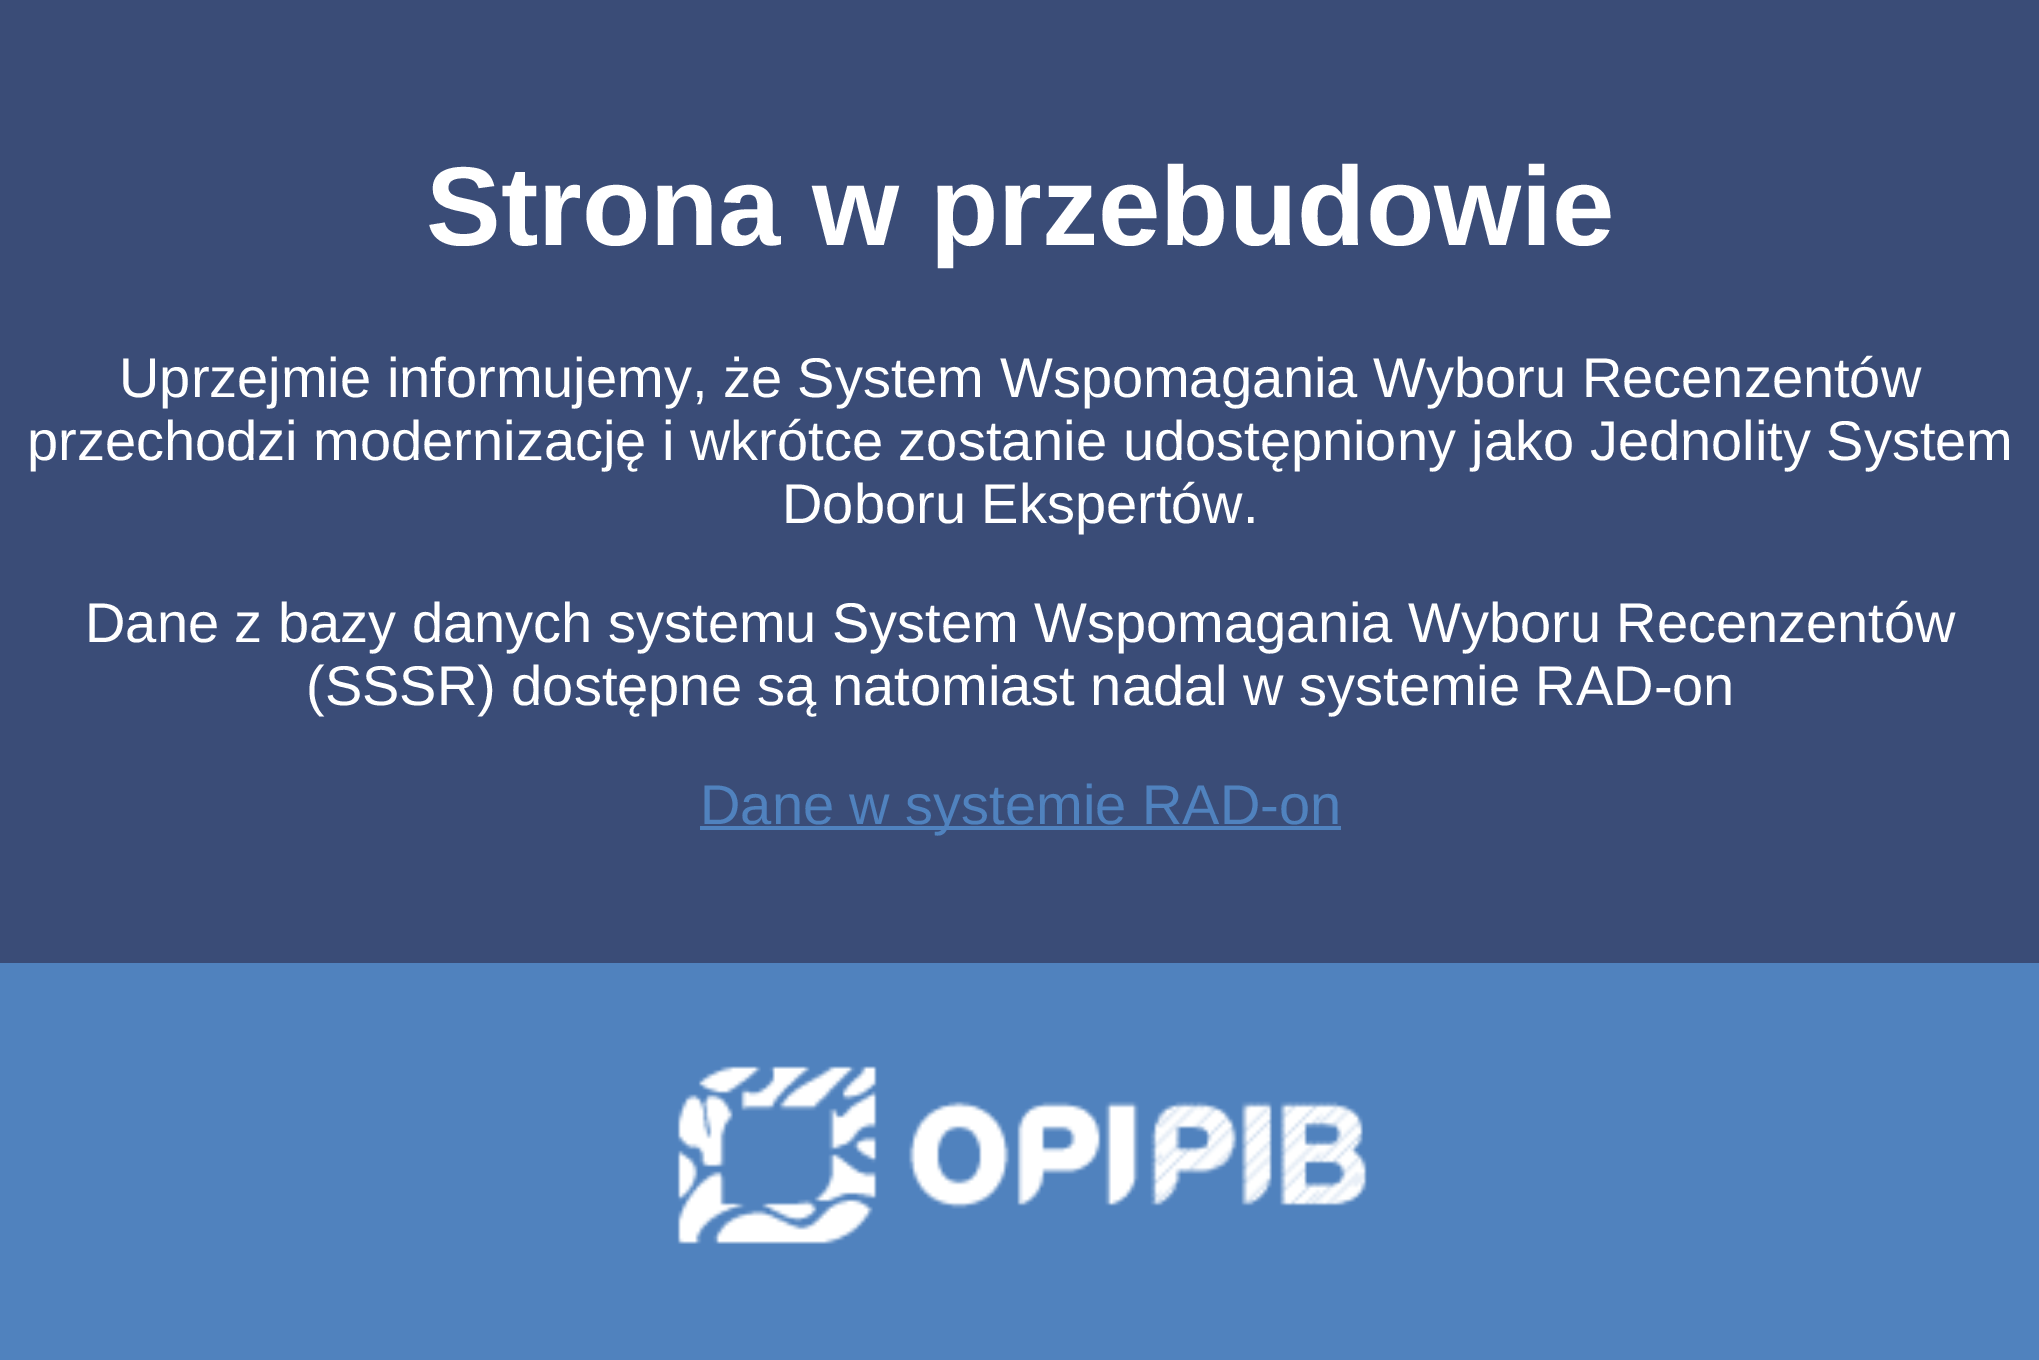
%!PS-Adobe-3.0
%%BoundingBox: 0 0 2039 1360
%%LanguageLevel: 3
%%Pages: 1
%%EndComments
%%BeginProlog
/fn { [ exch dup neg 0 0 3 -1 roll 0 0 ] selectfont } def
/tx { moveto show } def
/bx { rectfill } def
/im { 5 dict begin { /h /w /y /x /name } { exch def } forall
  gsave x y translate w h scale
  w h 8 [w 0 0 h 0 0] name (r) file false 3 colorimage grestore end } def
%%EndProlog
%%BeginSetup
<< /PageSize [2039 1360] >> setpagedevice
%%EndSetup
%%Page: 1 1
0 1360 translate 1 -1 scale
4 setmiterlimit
0.227 0.298 0.467 setrgbcolor
0 0 2039 1360 bx
/LiberationSans-Bold 112 fn
1 setgray
(Strona w przebudowie) 426 245 tx
/LiberationSans-Regular 56 fn
(Uprzejmie informujemy, że System Wspomagania Wyboru Recenzentów) 119 397 tx
(przechodzi modernizację i wkrótce zostanie udostępniony jako Jednolity System) 27 460 tx
(Doboru Ekspertów.) 782 523 tx
(Dane z bazy danych systemu System Wspomagania Wyboru Recenzentów) 85 642 tx
(\(SSSR\) dostępne są natomiast nadal w systemie RAD-on) 306 705 tx
0.314 0.51 0.745 setrgbcolor
700 826 641 4 bx
(Dane w systemie RAD-on) 700 824 tx
0 963 2039 397 bx
(image0.raw) 677 1066 690 178 im
showpage
%%EOF
